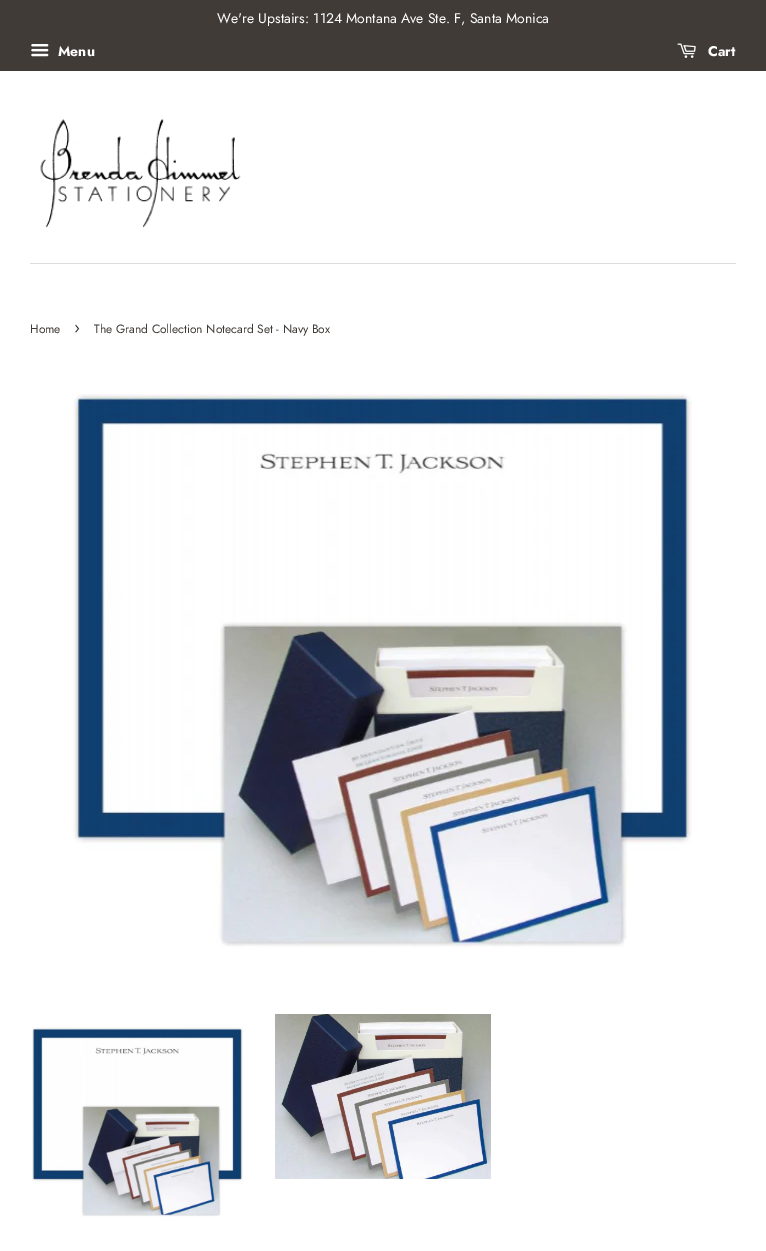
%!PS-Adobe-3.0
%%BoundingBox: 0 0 766 1251
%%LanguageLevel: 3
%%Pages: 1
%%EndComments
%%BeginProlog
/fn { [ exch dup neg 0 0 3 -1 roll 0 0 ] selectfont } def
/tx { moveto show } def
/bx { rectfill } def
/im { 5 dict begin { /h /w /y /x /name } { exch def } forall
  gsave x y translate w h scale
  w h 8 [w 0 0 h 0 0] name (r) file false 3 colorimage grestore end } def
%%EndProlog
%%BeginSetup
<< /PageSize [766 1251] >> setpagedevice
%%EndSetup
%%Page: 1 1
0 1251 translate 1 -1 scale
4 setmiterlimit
1 setgray
0 0 766 1251 bx
0.251 0.231 0.216 setrgbcolor
0 0 766 71 bx
/Jost-Regular 14 fn
1 setgray
(We're Upstairs: 1124 Montana Ave Ste. F, Santa Monica) 217 23 tx
(image0.raw) 31 44 18 13 im
/Jost-Bold 14 fn
(Menu) 58 56 tx
(image1.raw) 677 43 19 15 im
(Cart) 708 56 tx
0.867 setgray
30 263 706 1 bx
(image2.raw) 40 119 201 109 im
/Jost-Regular 12 fn
0.251 0.231 0.216 setrgbcolor
(Home) 30 333 tx
/Jost-Regular 17 fn
(›) 74 333 tx
/Jost-Regular 12 fn
(The Grand Collection Notecard Set - Navy Box) 94 333 tx
(image3.raw) 73 394 619 554 im
(image4.raw) 32 1027 211 190 im
(image5.raw) 275 1014 216 165 im
showpage
%%EOF
